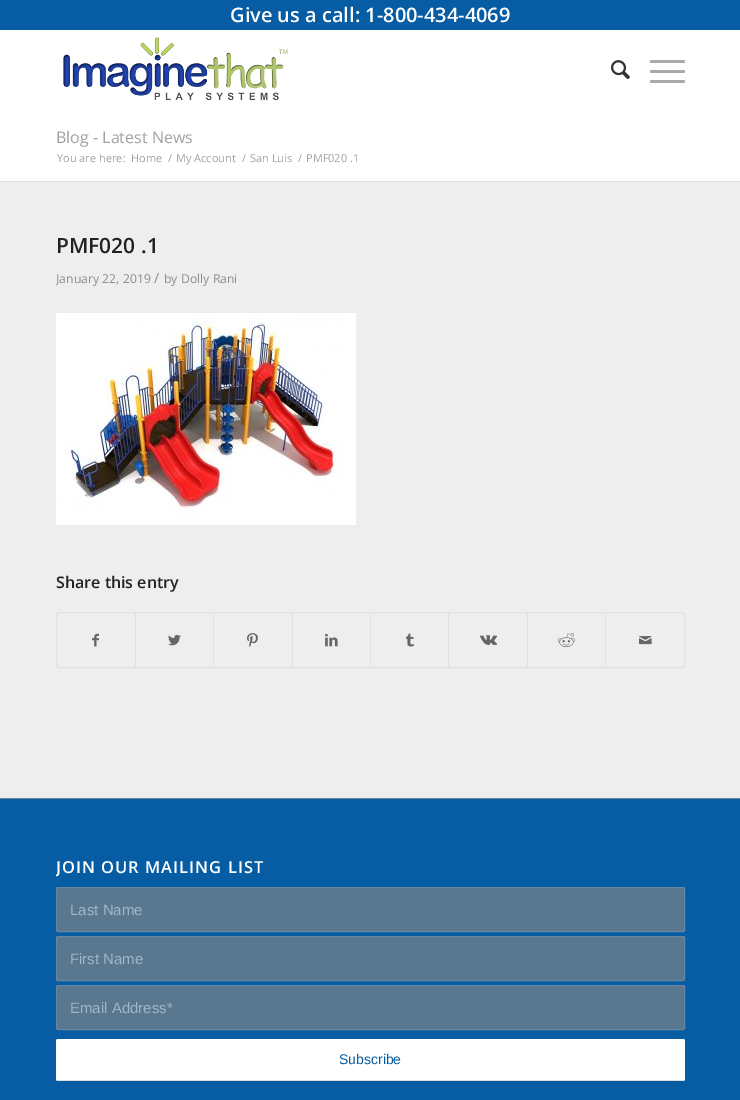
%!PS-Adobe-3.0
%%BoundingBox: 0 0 740 1100
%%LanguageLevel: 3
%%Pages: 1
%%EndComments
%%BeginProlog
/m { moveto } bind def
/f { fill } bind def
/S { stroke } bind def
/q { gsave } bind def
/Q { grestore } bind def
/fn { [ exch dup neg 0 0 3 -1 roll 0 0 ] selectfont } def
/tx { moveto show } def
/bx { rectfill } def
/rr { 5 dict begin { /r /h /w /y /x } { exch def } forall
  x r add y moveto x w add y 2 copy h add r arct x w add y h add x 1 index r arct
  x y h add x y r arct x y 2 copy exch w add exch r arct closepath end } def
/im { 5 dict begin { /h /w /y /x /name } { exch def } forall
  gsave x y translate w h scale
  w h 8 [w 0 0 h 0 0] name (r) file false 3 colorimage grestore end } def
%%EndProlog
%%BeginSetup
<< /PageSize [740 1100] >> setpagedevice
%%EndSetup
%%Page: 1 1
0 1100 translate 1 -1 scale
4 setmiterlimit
1 setgray
0 0 740 1100 bx
0.027 0.365 0.639 setrgbcolor
0 0 740 30 bx
/OpenSans-SemiBold 20 fn
1 setgray
(Give us a call: 1-800-434-4069) 230 22 tx
(image0.raw) 63 37 225 64 im
(image1.raw) 611 60 19 20 im
0.667 setgray
650 70 35 3 1.5 rr f
650 60 35 3 1.5 rr f
650 80 35 3 1.5 rr f
/OpenSans-Regular 16 fn
0.635 setgray
(Blog - Latest News) 56 143 tx
/OpenSans-Regular 11 fn
(You are here:) 57 162 tx
(Home) 131 162 tx
(/) 168 162 tx
(My Account) 176 162 tx
(/) 242 162 tx
(San Luis) 250 162 tx
(/) 298 162 tx
(PMF020 .1) 306 162 tx
0.933 setgray
0 182 740 616 bx
0.882 setgray
0 181 740 1 bx
/OpenSans-SemiBold 21 fn
0.133 setgray
(PMF020 .1) 56 253 tx
q
56 232 629 496 rectclip
/OpenSans-Regular 12.25 fn
0.553 setgray
(January 22, 2019) 56 283 tx
Q
/OpenSans-Regular 14 fn
0.553 setgray
(/) 154 283 tx
/OpenSans-Regular 12.25 fn
(by Dolly Rani) 164 283 tx
(image2.raw) 56 313 300 212 im
/OpenSans-SemiBold 16 fn
0.133 setgray
(Share this entry) 56 588 tx
0.882 setgray
56.5 612.5 628 55 2.5 rr S
(image3.raw) 92 633 7 14 im
135 613 1 54 bx
(image4.raw) 168 634 13 12 im
213 613 1 54 bx
(image5.raw) 247 633 11 14 im
292 613 1 54 bx
(image6.raw) 325 633 13 14 im
370 613 1 54 bx
(image7.raw) 406 633 8 14 im
448 613 1 54 bx
(image8.raw) 480 635 17 10 im
527 613 1 54 bx
(image9.raw) 558 633 17 15 im
605 613 1 54 bx
(image10.raw) 639 636 13 9 im
0.027 0.365 0.639 setrgbcolor
0 799 740 301 bx
0.404 0.525 0.631 setrgbcolor
0 798 740 1 bx
q
56 844 629 239 rectclip
/OpenSans-SemiBold 16.5 fn
1 setgray
56 873 m 1 0 (JOIN OUR MAILING LIST) ashow
Q
0.349 0.467 0.561 setrgbcolor
56.5 887.5 628 44 1.5 rr q f Q
0.404 0.525 0.631 setrgbcolor
S
/LiberationSans-Regular 15 fn
0.616 0.722 0.8 setrgbcolor
(Last Name) 70 915 tx
0.349 0.467 0.561 setrgbcolor
56.5 936.5 628 44 1.5 rr q f Q
0.404 0.525 0.631 setrgbcolor
S
0.616 0.722 0.8 setrgbcolor
(First Name) 70 964 tx
0.349 0.467 0.561 setrgbcolor
56.5 985.5 628 44 1.5 rr q f Q
0.404 0.525 0.631 setrgbcolor
S
0.616 0.722 0.8 setrgbcolor
(Email Address*) 70 1013 tx
1 setgray
56 1039 629 42 2 rr f
0.867 setgray
57 1080 627 1 bx
/LiberationSans-Regular 14 fn
0.027 0.365 0.639 setrgbcolor
(Subscribe) 339 1064 tx
showpage
%%EOF
